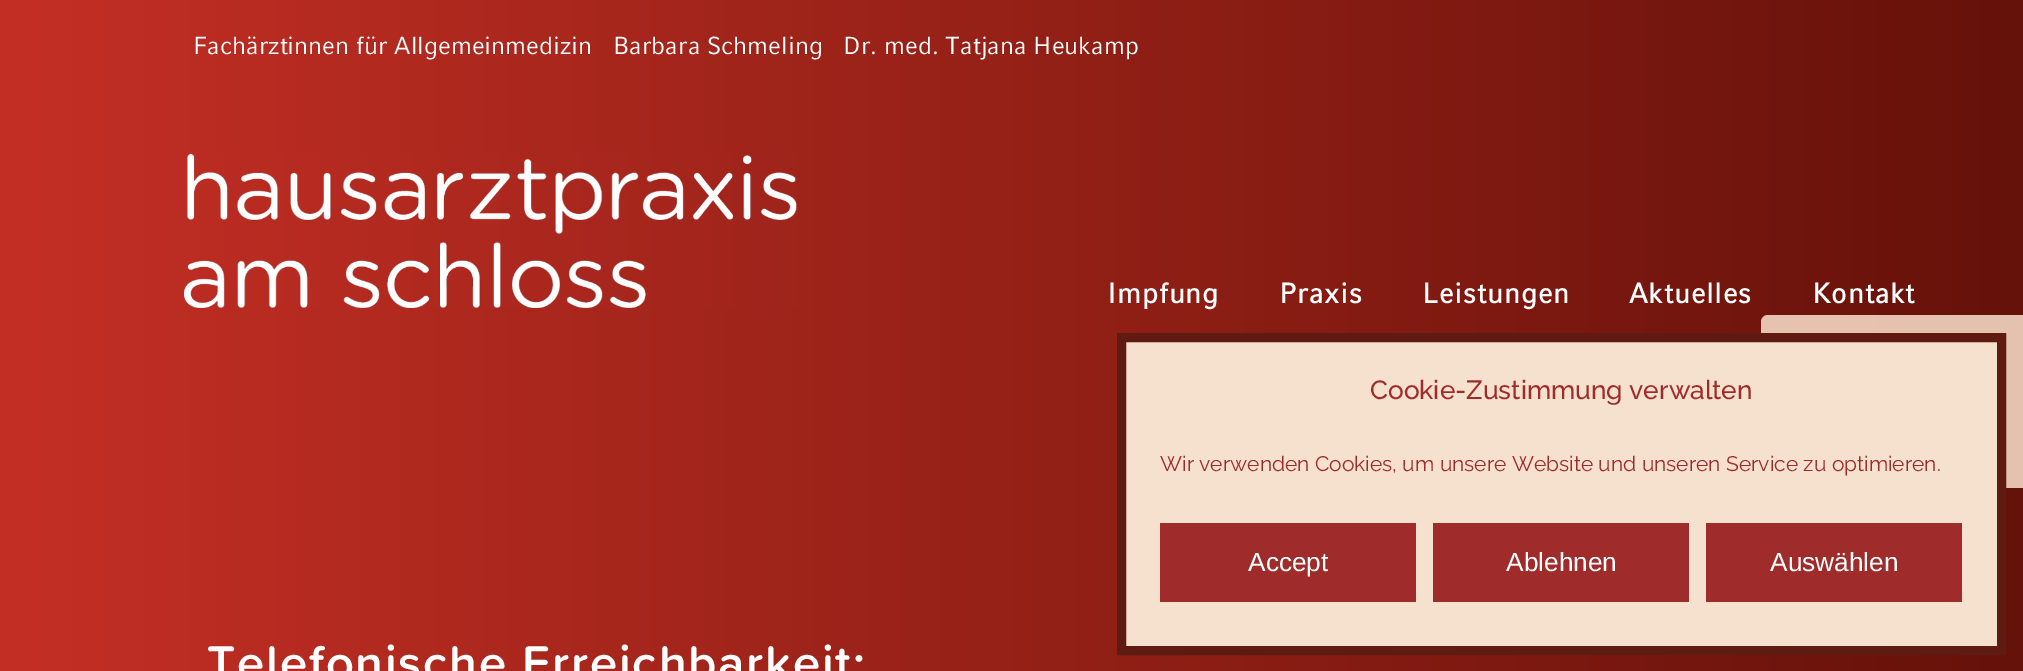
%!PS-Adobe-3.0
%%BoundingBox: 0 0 2023 671
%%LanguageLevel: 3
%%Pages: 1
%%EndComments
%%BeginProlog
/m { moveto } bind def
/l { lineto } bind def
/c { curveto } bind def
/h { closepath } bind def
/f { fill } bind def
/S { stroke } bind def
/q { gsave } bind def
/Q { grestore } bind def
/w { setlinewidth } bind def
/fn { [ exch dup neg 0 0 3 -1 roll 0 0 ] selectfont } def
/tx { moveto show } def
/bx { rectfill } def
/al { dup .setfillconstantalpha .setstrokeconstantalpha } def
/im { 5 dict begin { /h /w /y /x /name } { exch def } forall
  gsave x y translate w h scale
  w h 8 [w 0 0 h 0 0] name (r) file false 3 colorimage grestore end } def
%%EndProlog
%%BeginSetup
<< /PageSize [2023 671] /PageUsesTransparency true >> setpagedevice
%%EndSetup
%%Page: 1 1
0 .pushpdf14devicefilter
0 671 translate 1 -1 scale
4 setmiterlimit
1 setgray
0 0 2023 671 bx
q 0 0 m 2023 0 l 2023 671 l 0 671 l h clip newpath
<< /ShadingType 2 /ColorSpace /DeviceRGB /Coords [-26 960 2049 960] /Extend [true true] /Function << /FunctionType 2 /Domain [0 1] /C0 [0.773 0.184 0.145] /C1 [0.392 0.071 0.039] /N 1 >> >> shfill Q
/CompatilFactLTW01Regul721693-Regular 24.5 fn
(Fachärztinnen für Allgemeinmedizin   Barbara Schmeling   Dr. med. Tatjana Heukamp) 193 54 tx
0.85 al
0.984 0.878 0.8 setrgbcolor
1768 315 m 2023 315 l 2023 488 l 1768 488 l 1764 488 1761 485 1761 481 c 1761 322 l 1761 318 1764 315 1768 315 c h f
1 al
(image0.raw) 184 153 613 155 im
/CompatilFactLTW01Regul721693-Bold 28 fn
1 setgray
1107 303 m 0.9 0 (Impfung) ashow
1279 303 m 0.9 0 (Praxis) ashow
1422 303 m 0.9 0 (Leistungen) ashow
1629 303 m 0.9 0 (Aktuelles) ashow
1812 303 m 0.9 0 (Kontakt) ashow
/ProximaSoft-SemiBold 49 fn
207 679 m 1.75 0 (Telefonische Erreichbarkeit:) ashow
0.965 0.882 0.808 setrgbcolor
1121.5 337.5 m 2001.5 337.5 l 2001.5 650.5 l 1121.5 650.5 l h q f Q
0.373 0.102 0.067 setrgbcolor
9 w
S
/Raleway-Medium 26.25 fn
0.624 0.169 0.165 setrgbcolor
(Cookie-Zustimmung verwalten) 1370 399 tx
/Raleway-Regular 21 fn
(Wir verwenden Cookies, um unsere Website und unseren Service zu optimieren.) 1160 471 tx
1160 523 256 79 bx
/LiberationSans-Regular 26.25 fn
1 setgray
(Accept) 1248 571 tx
0.624 0.169 0.165 setrgbcolor
1433 523 256 79 bx
1 setgray
(Ablehnen) 1506 571 tx
0.624 0.169 0.165 setrgbcolor
1706 523 256 79 bx
1 setgray
(Auswählen) 1770 571 tx
.poppdf14devicefilter showpage
%%EOF
